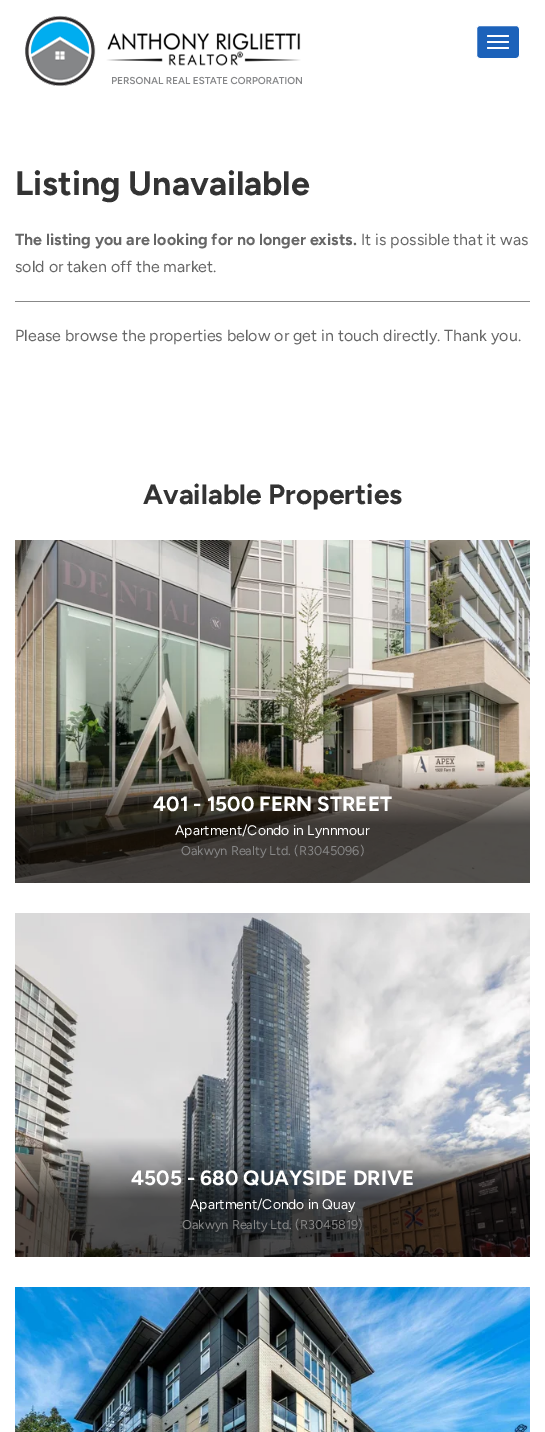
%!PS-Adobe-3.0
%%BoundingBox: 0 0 545 1432
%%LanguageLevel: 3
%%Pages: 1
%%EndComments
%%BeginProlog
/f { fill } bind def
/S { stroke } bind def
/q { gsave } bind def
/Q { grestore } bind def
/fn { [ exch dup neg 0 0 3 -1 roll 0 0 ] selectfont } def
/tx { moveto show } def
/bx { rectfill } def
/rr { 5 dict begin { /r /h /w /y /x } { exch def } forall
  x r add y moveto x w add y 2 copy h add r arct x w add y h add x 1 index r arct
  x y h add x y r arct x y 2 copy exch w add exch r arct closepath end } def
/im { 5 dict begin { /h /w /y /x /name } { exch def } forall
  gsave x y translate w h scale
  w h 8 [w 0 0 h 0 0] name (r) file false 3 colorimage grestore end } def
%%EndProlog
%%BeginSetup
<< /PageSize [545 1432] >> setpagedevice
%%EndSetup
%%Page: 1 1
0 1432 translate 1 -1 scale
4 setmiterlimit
1 setgray
0 0 545 1432 bx
(image0.raw) 25 15 277 71 im
0.11 0.384 0.729 setrgbcolor
476.5 25.5 43 33 3.5 rr q f Q
1 setgray
S
487 35 22 2 1 rr f
487 41 22 2 1 rr f
487 47 22 2 1 rr f
/Figtree-Bold 34 fn
0.2 setgray
(Listing Unavailable) 15 195 tx
/Figtree-Bold 16 fn
0.4 setgray
(The listing you are looking for no longer exists.) 15 245 tx
/Figtree-Regular 16 fn
(It is possible that it was) 361 245 tx
(sold or taken off the market.) 15 272 tx
0.533 setgray
15 301 515 1 bx
0.4 setgray
(Please browse the properties below or get in touch directly. Thank you.) 15 341 tx
/Figtree-Bold 28 fn
0.2 setgray
(Available Properties) 143 504 tx
(image1.raw) 15 540 515 343 im
/Figtree-Bold 20.75 fn
1 setgray
(401 - 1500 FERN STREET) 153 811 tx
/Figtree-Regular 13.9 fn
(Apartment/Condo in Lynnmour) 175 835 tx
/Figtree-Regular 12.75 fn
0.533 setgray
(Oakwyn Realty Ltd. \(R3045096\)) 181 855 tx
(image2.raw) 15 913 515 344 im
/Figtree-Bold 20.75 fn
1 setgray
(4505 - 680 QUAYSIDE DRIVE) 131 1185 tx
/Figtree-Regular 13.9 fn
(Apartment/Condo in Quay) 190 1209 tx
/Figtree-Regular 12.75 fn
0.533 setgray
(Oakwyn Realty Ltd. \(R3045819\)) 182 1229 tx
(image3.raw) 15 1287 515 145 im
showpage
%%EOF
